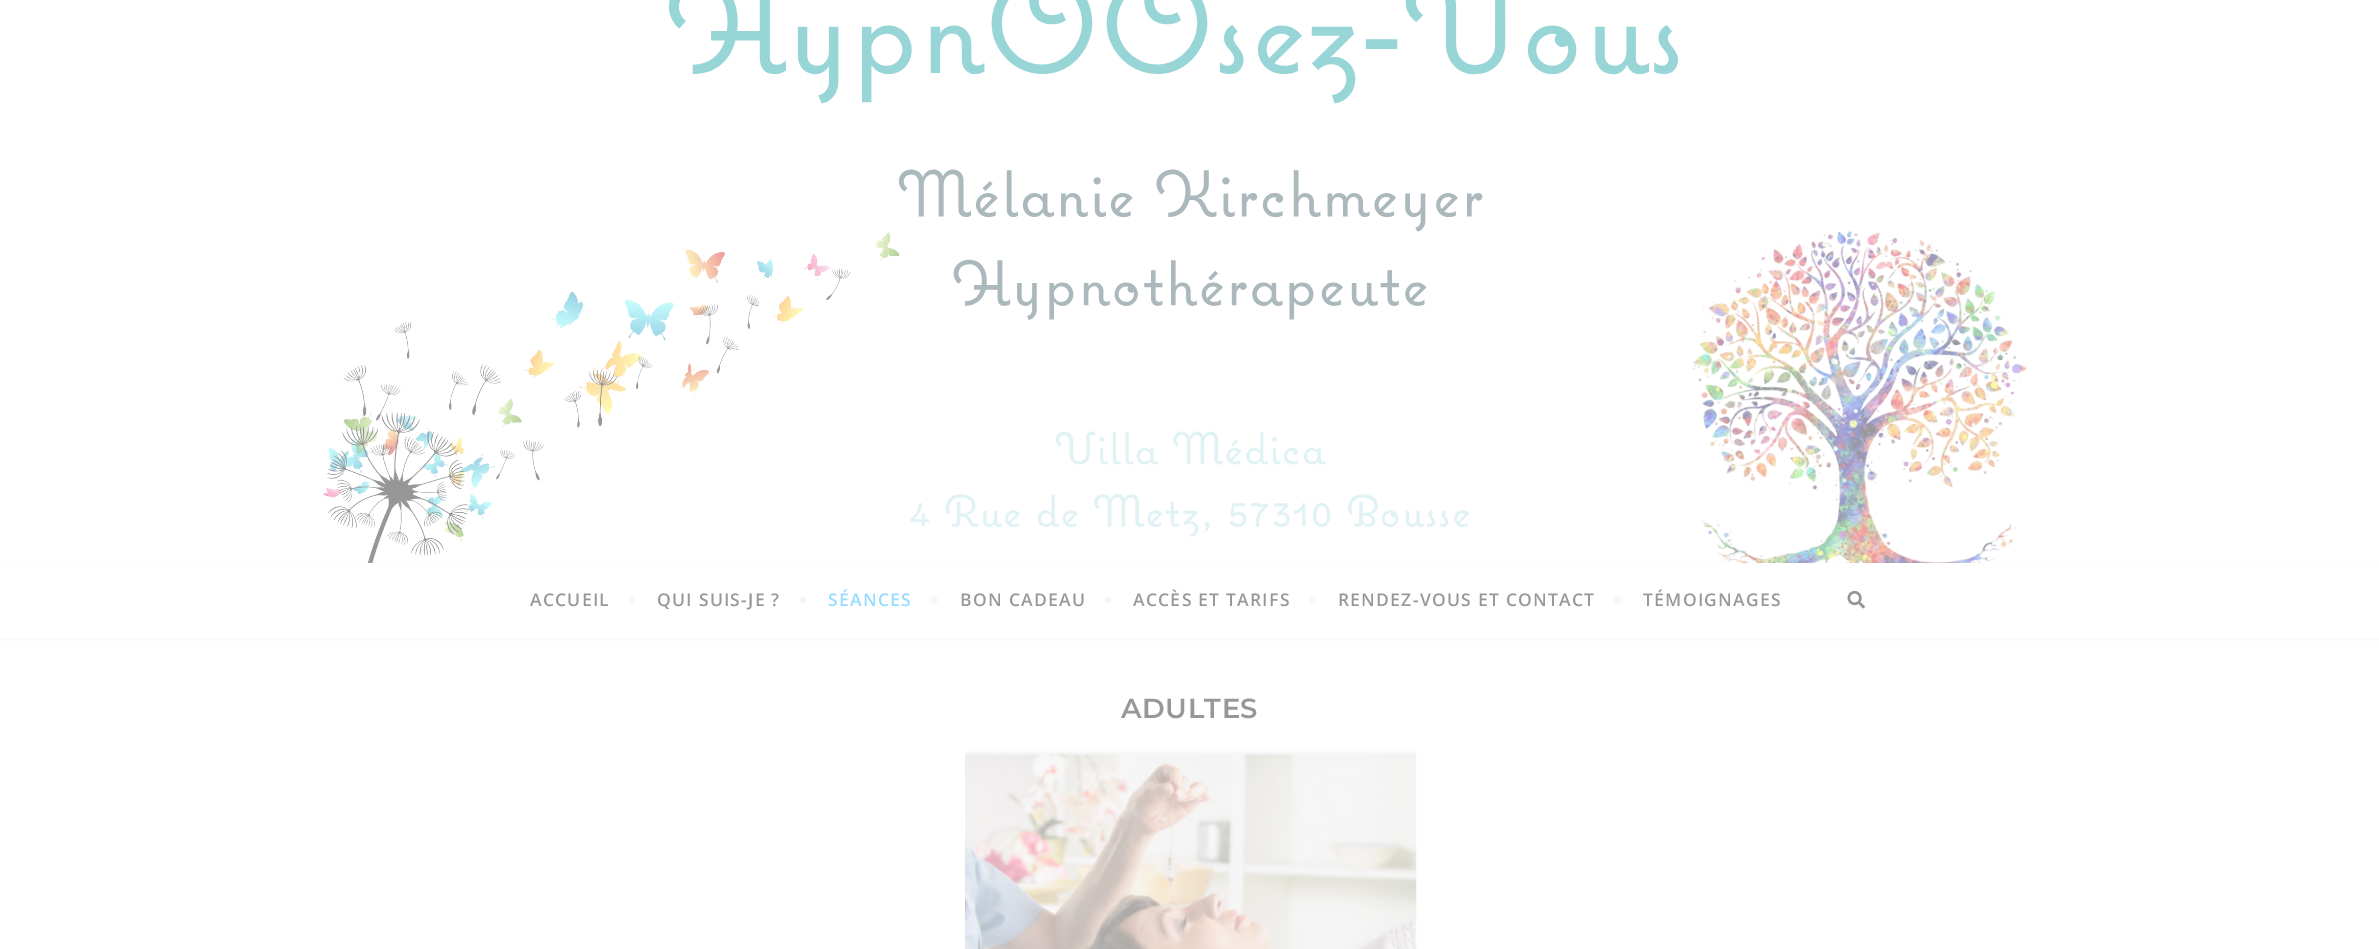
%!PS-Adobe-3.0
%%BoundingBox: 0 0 2379 949
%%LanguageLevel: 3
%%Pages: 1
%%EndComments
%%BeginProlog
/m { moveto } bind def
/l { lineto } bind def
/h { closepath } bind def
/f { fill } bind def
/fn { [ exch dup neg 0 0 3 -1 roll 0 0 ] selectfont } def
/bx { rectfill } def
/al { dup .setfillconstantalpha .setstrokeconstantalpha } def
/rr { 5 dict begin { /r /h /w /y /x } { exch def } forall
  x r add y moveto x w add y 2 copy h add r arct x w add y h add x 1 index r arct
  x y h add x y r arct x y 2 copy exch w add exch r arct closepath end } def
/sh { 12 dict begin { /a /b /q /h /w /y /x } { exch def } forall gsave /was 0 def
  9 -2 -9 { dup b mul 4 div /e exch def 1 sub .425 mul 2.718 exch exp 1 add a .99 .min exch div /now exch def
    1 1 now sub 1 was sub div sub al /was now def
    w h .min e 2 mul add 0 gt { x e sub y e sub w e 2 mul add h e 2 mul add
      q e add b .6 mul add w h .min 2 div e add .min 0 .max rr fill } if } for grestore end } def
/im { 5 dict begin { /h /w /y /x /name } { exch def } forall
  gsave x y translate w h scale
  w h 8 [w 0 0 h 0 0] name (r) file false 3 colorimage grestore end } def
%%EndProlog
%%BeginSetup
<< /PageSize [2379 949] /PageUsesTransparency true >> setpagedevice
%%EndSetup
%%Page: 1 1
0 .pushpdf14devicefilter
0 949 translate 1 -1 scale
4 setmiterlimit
1 setgray
0 0 2379 949 bx
(image0.raw) 323 0 1704 563 im
0.588 setgray
0 564 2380 75 0 3 0.1 sh
1 setgray
0 563 2379 75 bx
/OpenSans-SemiBold 17.5 fn
0.596 setgray
530 606 m 1.25 0 (ACCUEIL) ashow
0.965 setgray
627.5 600 m 632 595.5 l 636 600 l 632 604.5 l h f
0.596 setgray
657 606 m 1.25 0 (QUI SUIS-JE ?) ashow
0.965 setgray
798.5 600 m 803 595.5 l 807.5 600 l 803 604.5 l h f
0.588 0.863 1 setrgbcolor
828 606 m 1.25 0 (SÉANCES) ashow
0.965 setgray
929.5 600 m 934 595.5 l 938.5 600 l 934 604.5 l h f
0.596 setgray
960 606 m 1.25 0 (BON CADEAU) ashow
0.965 setgray
1103 600 m 1107.5 595.5 l 1112 600 l 1107.5 604.5 l h f
0.596 setgray
1133 606 m 1.25 0 (ACCÈS ET TARIFS) ashow
0.965 setgray
1308 600 m 1312.5 595.5 l 1317 600 l 1312.5 604.5 l h f
0.596 setgray
1338 606 m 1.25 0 (RENDEZ-VOUS ET CONTACT) ashow
0.965 setgray
1613 600 m 1617 595.5 l 1621.5 600 l 1617 604.5 l h f
0.596 setgray
1643 606 m 1.25 0 (TÉMOIGNAGES) ashow
(image1.raw) 1847 590 18 19 im
/Montserrat-SemiBold 27.5 fn
1121 718 m 0.5 0 (ADULTES) ashow
(image2.raw) 965 751 452 198 im
.poppdf14devicefilter showpage
%%EOF
